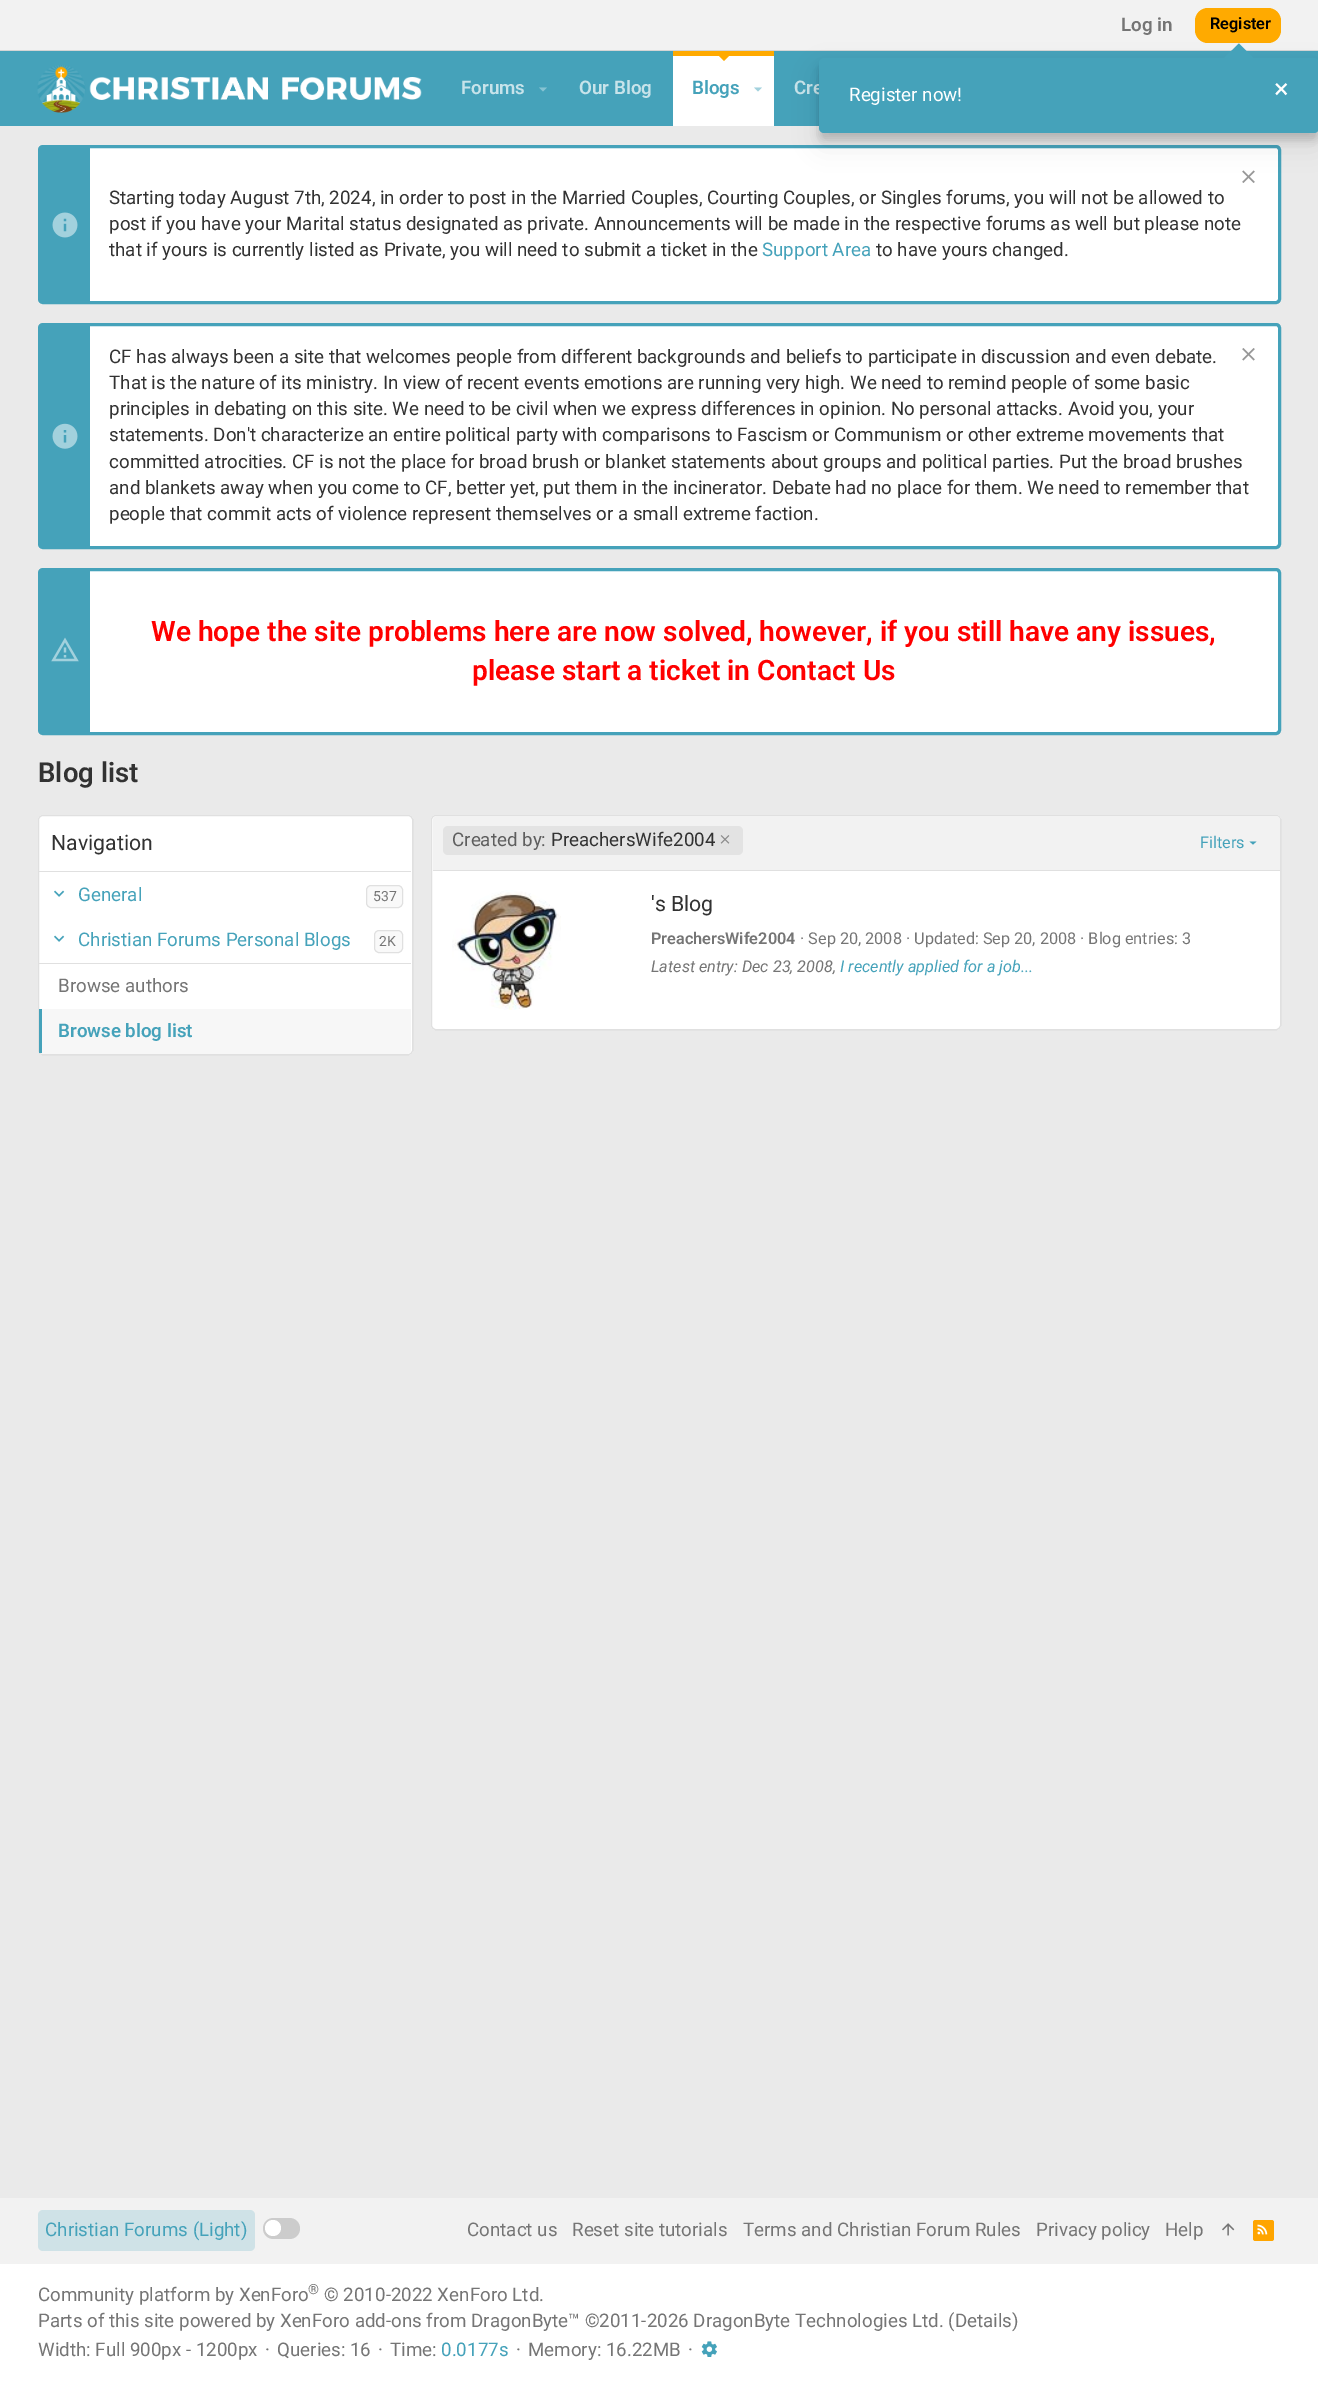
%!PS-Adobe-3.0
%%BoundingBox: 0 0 1318 2385
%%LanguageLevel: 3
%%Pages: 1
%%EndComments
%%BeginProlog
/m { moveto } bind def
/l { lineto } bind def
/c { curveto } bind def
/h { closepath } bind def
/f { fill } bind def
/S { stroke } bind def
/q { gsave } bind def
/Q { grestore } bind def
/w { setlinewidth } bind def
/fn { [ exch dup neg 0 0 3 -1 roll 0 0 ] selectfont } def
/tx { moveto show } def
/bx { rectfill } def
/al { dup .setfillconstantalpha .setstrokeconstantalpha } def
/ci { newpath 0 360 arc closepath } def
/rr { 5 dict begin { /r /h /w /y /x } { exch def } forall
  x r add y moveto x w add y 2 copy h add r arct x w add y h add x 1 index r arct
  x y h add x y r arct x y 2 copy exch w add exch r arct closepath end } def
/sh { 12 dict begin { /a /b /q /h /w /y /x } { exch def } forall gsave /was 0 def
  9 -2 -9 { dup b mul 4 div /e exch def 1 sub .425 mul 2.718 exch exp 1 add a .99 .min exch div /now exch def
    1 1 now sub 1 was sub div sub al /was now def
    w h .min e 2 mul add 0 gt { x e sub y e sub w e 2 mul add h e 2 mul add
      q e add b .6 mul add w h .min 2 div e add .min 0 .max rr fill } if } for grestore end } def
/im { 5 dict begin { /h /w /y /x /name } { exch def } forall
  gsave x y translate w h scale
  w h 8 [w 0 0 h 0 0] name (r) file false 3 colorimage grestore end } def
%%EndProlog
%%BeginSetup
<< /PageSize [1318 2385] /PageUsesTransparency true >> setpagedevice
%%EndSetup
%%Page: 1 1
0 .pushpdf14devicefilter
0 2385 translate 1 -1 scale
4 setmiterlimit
0.918 setgray
0 0 1318 2385 bx
0.949 setgray
0 0 1318 50 bx
0.835 setgray
0 50 1318 1 bx
/Roboto-SemiBold 18.75 fn
0.459 setgray
(Log in) 1121 31 tx
1 0.667 0 setrgbcolor
1195 8 86 35 13 rr f
/Roboto-SemiBold 16.25 fn
0 setgray
(Register) 1210 29 tx
0.271 0.635 0.729 setrgbcolor
0 51 1318 75 bx
(image0.raw) 37 65 385 48 im
/Roboto-SemiBold 18.75 fn
0.78 0.89 0.918 setrgbcolor
(Forums) 461 94 tx
0.525 0.765 0.827 setrgbcolor
539 87.5 m 543 91.5 l 547 87.5 l h f
0.78 0.89 0.918 setrgbcolor
(Our Blog) 579 94 tx
1 setgray
673 56 101 70 bx
1 0.667 0 setrgbcolor
673 51 101 5 bx
719 56 m 729 56 l 724 61 l h f
0.271 0.635 0.729 setrgbcolor
(Blogs) 692 94 tx
0.635 0.82 0.867 setrgbcolor
754 87.5 m 758 91.5 l 762 87.5 l h f
0.78 0.89 0.918 setrgbcolor
(Cre) 794 94 tx
1 setgray
39.5 146.5 1240 156 3.5 rr q f Q
0.271 0.635 0.729 setrgbcolor
3 w
S
41 148 49 153 bx
(image1.raw) 52 212 26 26 im
(image2.raw) 1242 170 13 13 im
/Roboto-Regular 18.75 fn
0.196 setgray
(Starting today August 7th, 2024, in order to post in the Married Couples, Courting Couples, or Singles forums, you will not be allowed to) 109 204 tx
(post if you have your Marital status designated as private. Announcements will be made in the respective forums as well but please note) 109 230 tx
(that if yours is currently listed as Private, you will need to submit a ticket in the) 109 256 tx
0.271 0.635 0.729 setrgbcolor
(Support Area) 762 256 tx
0.196 setgray
(to have yours changed.) 876 256 tx
1 setgray
39.5 324.5 1240 223 3.5 rr q f Q
0.271 0.635 0.729 setrgbcolor
S
41 326 49 220 bx
(image3.raw) 52 423 26 26 im
0.196 setgray
(CF has always been a site that welcomes people from different backgrounds and beliefs to participate in discussion and even debate.) 109 363 tx
(image4.raw) 1242 348 13 13 im
(That is the nature of its ministry. In view of recent events emotions are running very high. We need to remind people of some basic) 109 389 tx
(principles in debating on this site. We need to be civil when we express differences in opinion. No personal attacks. Avoid you, your) 109 415 tx
(statements. Don't characterize an entire political party with comparisons to Fascism or Communism or other extreme movements that) 109 441 tx
(committed atrocities. CF is not the place for broad brush or blanket statements about groups and political parties. Put the broad brushes) 109 468 tx
(and blankets away when you come to CF, better yet, put them in the incinerator. Debate had no place for them. We need to remember that) 109 494 tx
(people that commit acts of violence represent themselves or a small extreme faction.) 109 520 tx
1 setgray
39.5 569.5 1240 164 3.5 rr q f Q
0.271 0.635 0.729 setrgbcolor
S
41 571 49 161 bx
(image5.raw) 51 637 28 25 im
/Roboto-SemiBold 28.1 fn
1 0 0 setrgbcolor
(We hope the site problems here are now solved, however, if you still have any issues,) 151 641 tx
(please start a ticket in Contact Us) 472 680 tx
/Roboto-SemiBold 27.5 fn
0.196 setgray
(Blog list) 38 782 tx
1 setgray
38 815 375 240 5 rr f
0.12 al
0 setgray
1 w
38.5 815.5 374 239 4.5 rr S
1 al
0.878 setgray
39 871 372 1 bx
/Roboto-Regular 21.25 fn
0.196 setgray
(Navigation) 51 850 tx
(image6.raw) 54 890 11 7 im
/Roboto-Regular 18.75 fn
0.271 0.635 0.729 setrgbcolor
(General) 78 901 tx
0.976 setgray
366.5 885.5 36 22 4.5 rr q f Q
0.878 setgray
S
/Roboto-Regular 14 fn
0.459 setgray
(537) 373 901 tx
(image6.raw) 54 935 11 7 im
/Roboto-Regular 18.75 fn
0.271 0.635 0.729 setrgbcolor
(Christian Forums Personal Blogs) 78 946 tx
0.976 setgray
374.5 930.5 28 22 4.5 rr q f Q
0.878 setgray
S
/Roboto-Regular 14 fn
0.459 setgray
(2K) 379 946 tx
0.878 setgray
39 963 372 1 bx
/Roboto-Regular 18.75 fn
0.459 setgray
(Browse authors) 58 992 tx
0.969 setgray
39 1009 m 411 1009 l 411 1050 l 411 1052 409 1054 407 1054 c 43 1054 l 41 1054 39 1052 39 1050 c h f
0.271 0.635 0.729 setrgbcolor
39 1009 3 44 bx
/Roboto-SemiBold 18.75 fn
(Browse blog list) 58 1037 tx
1 setgray
431 815 850 215 5 rr f
0.12 al
0 setgray
431.5 815.5 849 214 4.5 rr S
1 al
0.949 setgray
437 816 m 1276 816 l 1278 816 1280 818 1280 820 c 1280 870 l 433 870 l 433 820 l 433 818 435 816 437 816 c h f
0.89 setgray
443 826 300 29 5 rr f
/Roboto-Regular 18.75 fn
0.369 setgray
(Created by:) 452 846 tx
0.196 setgray
(PreachersWife2004) 551 846 tx
(image7.raw) 720 835 10 9 im
/Roboto-Regular 16.25 fn
0.271 0.635 0.729 setrgbcolor
(Filters) 1200 848 tx
1249.5 841.5 m 1253 844.5 l 1256.5 841.5 l h f
0.878 setgray
433 870 847 1 bx
(image8.raw) 452 890 109 120 im
/Roboto-Regular 21.25 fn
0.196 setgray
('s Blog) 651 911 tx
/Roboto-SemiBold 16.25 fn
0.459 setgray
(PreachersWife2004) 651 944 tx
/Roboto-Regular 16.25 fn
(· Sep 20, 2008 · Updated: Sep 20, 2008 · Blog entries: 3) 800 944 tx
/Roboto-Italic 16.25 fn
(Latest entry: Dec 23, 2008,) 651 972 tx
0.271 0.635 0.729 setrgbcolor
(I recently applied for a job...) 840 972 tx
0.949 setgray
0 2198 1318 66 bx
0.812 0.886 0.906 setrgbcolor
38 2210 217 41 5 rr f
/Roboto-Regular 18.75 fn
0.271 0.635 0.729 setrgbcolor
(Christian Forums \(Light\)) 45 2236 tx
0.8 setgray
263 2218 37 21 10.5 rr f
1 setgray
273 2228 8 ci f
0.459 setgray
(Contact us) 467 2236 tx
(Reset site tutorials) 572 2236 tx
(Terms and Christian Forum Rules) 743 2236 tx
(Privacy policy) 1036 2236 tx
(Help) 1165 2236 tx
(image9.raw) 1222 2223 13 13 im
1 0.647 0 setrgbcolor
1253 2220 21 21 2.5 rr f
(image10.raw) 1257 2224 11 11 im
1 setgray
0 2264 1318 121 bx
0.459 setgray
(Community platform by XenForo) 38 2301 tx
/Roboto-Regular 14 fn
(®) 308 2294 tx
/Roboto-Regular 18.75 fn
(© 2010-2022 XenForo Ltd.) 324 2301 tx
(Parts of this site powered by XenForo add-ons from DragonByte™ ©2011-2026 DragonByte Technologies Ltd. \(Details\)) 38 2327 tx
(Width: Full 900px - 1200px) 38 2356 tx
(·) 265 2356 tx
(Queries: 16) 277 2356 tx
(·) 378 2356 tx
(Time:) 390 2356 tx
0.271 0.635 0.729 setrgbcolor
(0.0177s) 441 2356 tx
0.459 setgray
(·) 516 2356 tx
(Memory: 16.22MB) 528 2356 tx
(·) 688 2356 tx
(image11.raw) 701 2341 16 16 im
0 setgray
819 65 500 75 5 4 0.15 sh
819 70 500 75 5 12.5 0.09 sh
0.271 0.635 0.729 setrgbcolor
819 58 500 75 5 rr f
1239 43.5 m 1253 57.5 l 1239 71.5 l 1224.5 57.5 l h f
1 setgray
(Register now!) 849 101 tx
/Roboto-Regular 27.5 fn
(×) 1274 98 tx
.poppdf14devicefilter showpage
%%EOF
